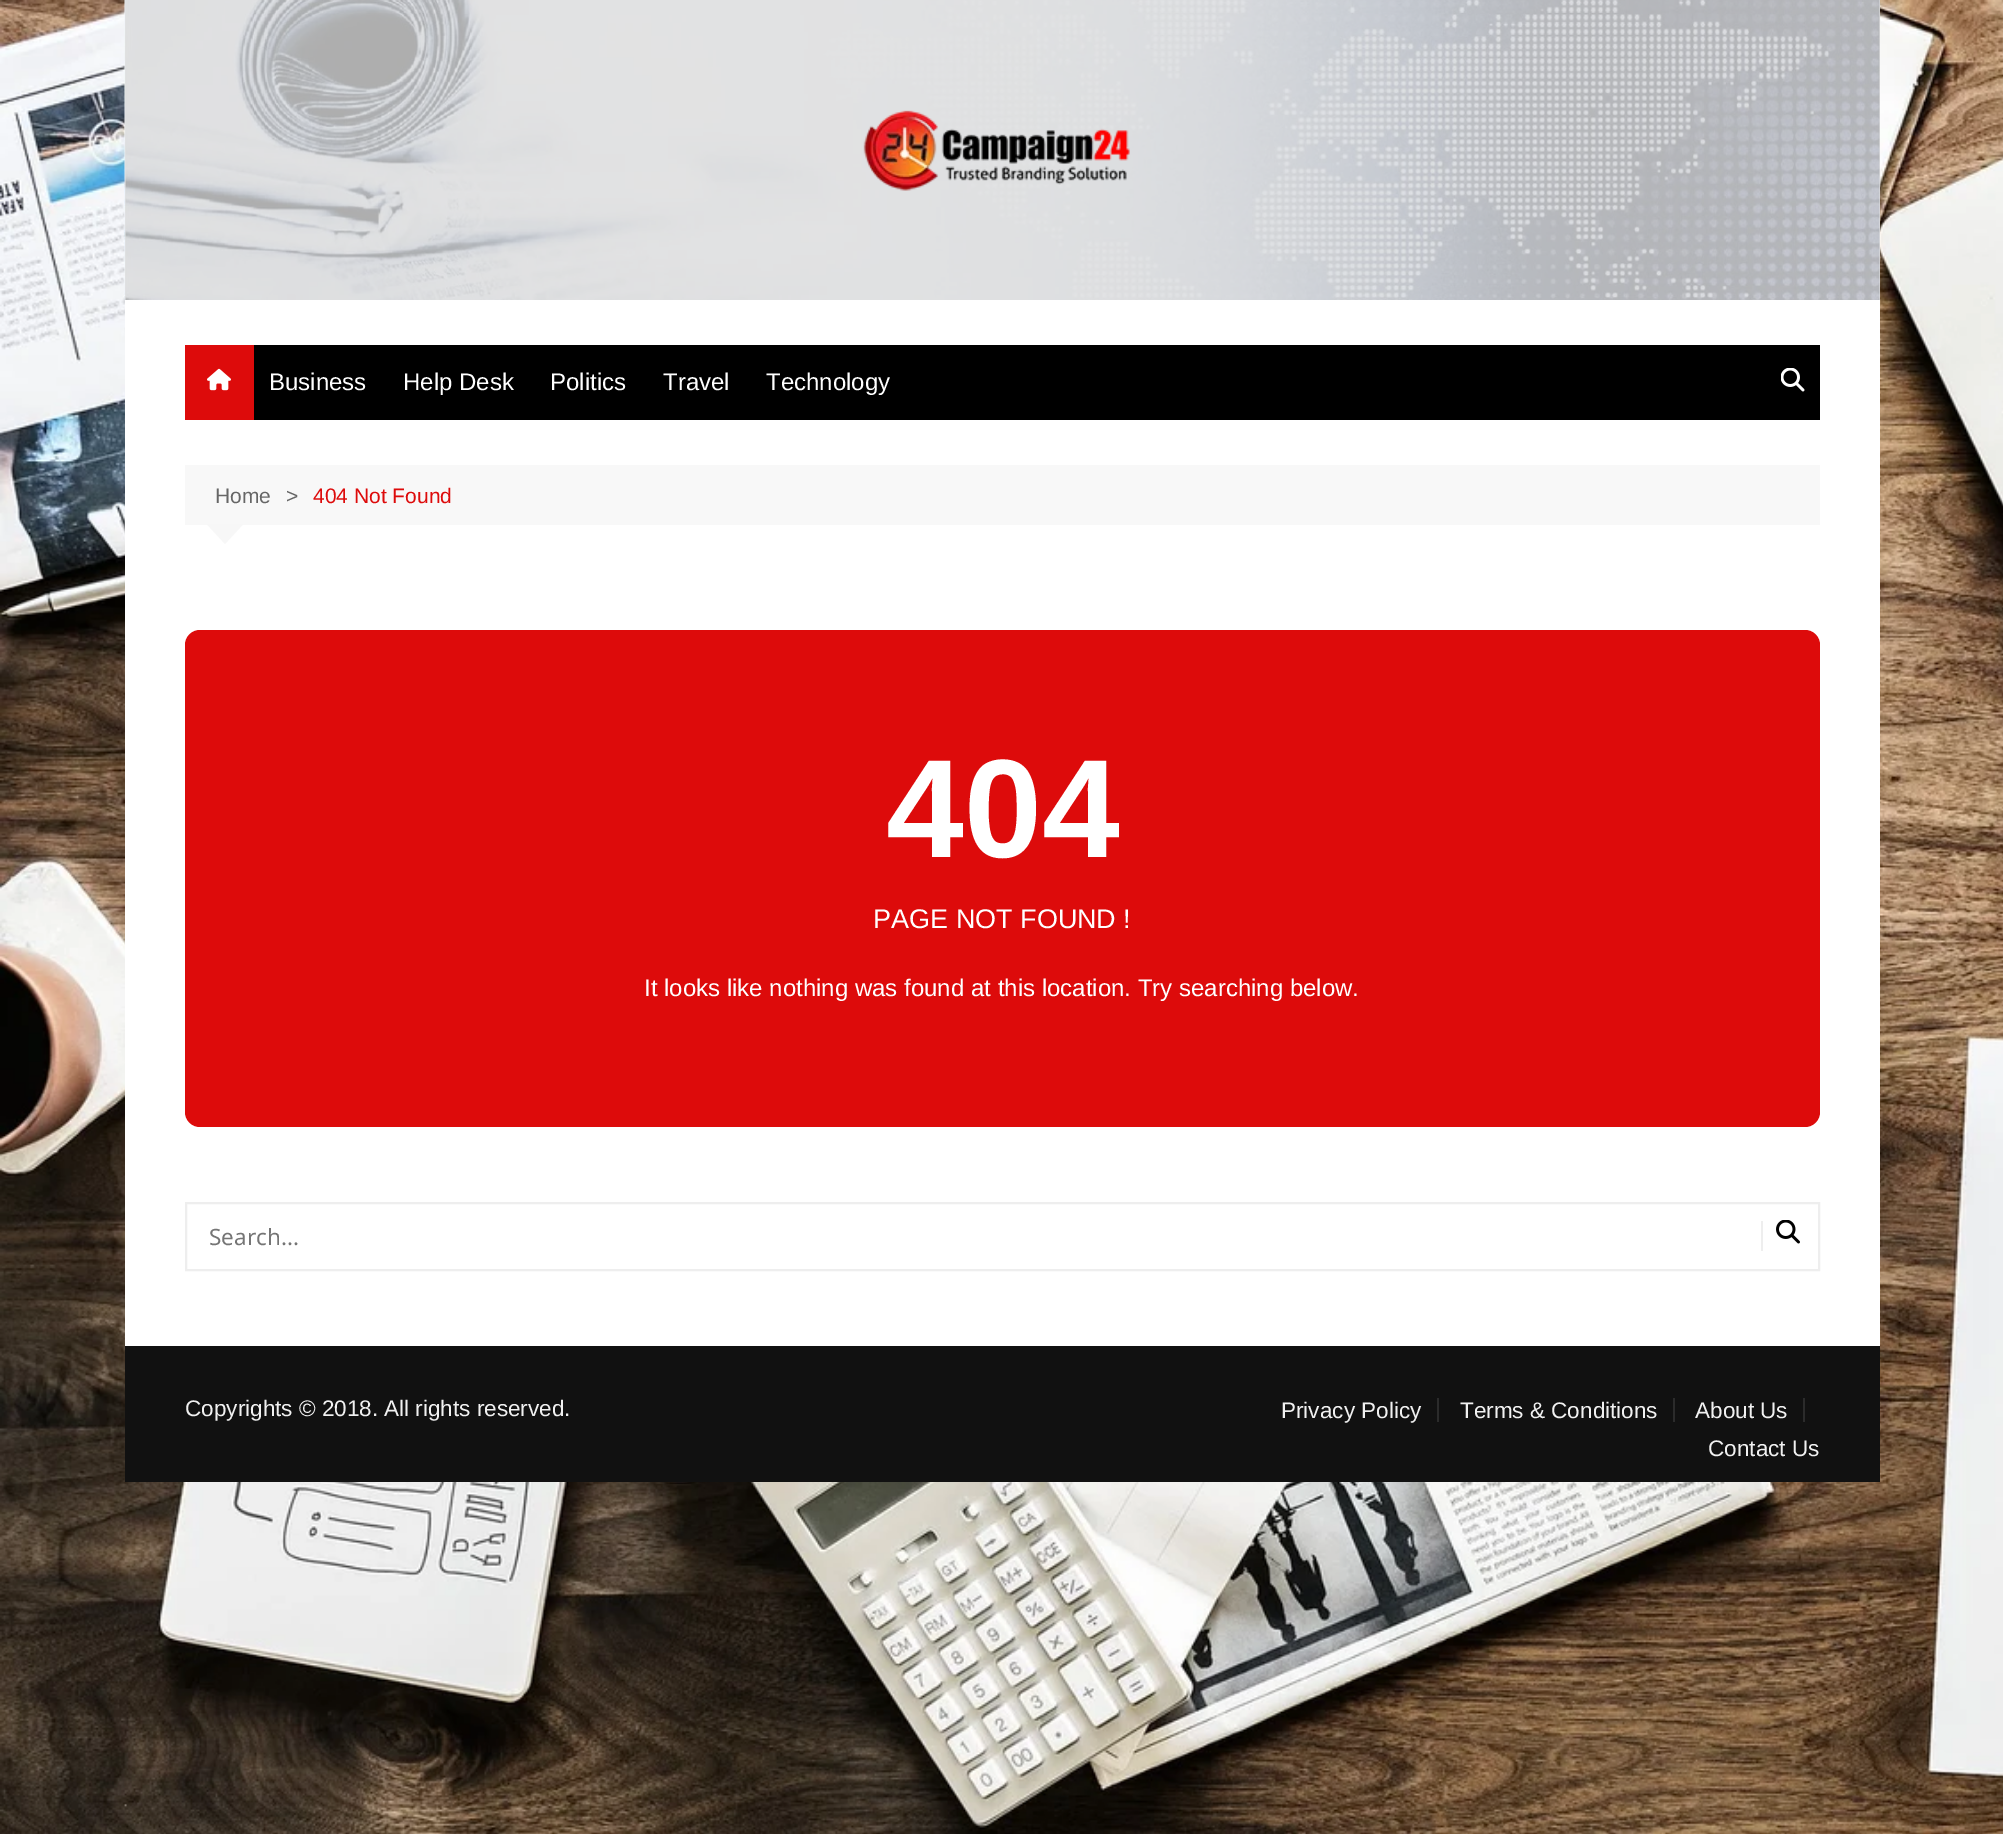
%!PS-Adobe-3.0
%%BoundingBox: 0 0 2003 1834
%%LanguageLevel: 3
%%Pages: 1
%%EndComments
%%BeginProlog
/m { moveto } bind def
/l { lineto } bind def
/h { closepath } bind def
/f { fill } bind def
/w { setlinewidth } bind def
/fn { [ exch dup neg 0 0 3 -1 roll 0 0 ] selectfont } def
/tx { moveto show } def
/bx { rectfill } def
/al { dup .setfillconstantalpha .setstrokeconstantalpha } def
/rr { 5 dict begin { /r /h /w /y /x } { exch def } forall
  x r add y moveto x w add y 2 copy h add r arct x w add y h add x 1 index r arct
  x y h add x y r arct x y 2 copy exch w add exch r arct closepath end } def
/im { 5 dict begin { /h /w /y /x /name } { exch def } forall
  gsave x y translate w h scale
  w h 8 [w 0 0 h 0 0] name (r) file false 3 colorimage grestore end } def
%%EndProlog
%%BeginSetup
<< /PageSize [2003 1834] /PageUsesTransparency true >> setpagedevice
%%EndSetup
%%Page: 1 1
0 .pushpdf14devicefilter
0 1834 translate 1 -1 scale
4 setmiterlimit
1 setgray
0 0 2003 1834 bx
(image0.raw) 0 0 2003 1834 im
125 0 1755 1346 bx
(image1.raw) 124 0 1756 300 im
0.77 al
0.867 setgray
125 0 1755 300 bx
1 al
(image2.raw) 863 110 267 81 im
0 setgray
254 345 1566 75 bx
0.867 0.043 0.043 setrgbcolor
185 345 69 75 bx
(image3.raw) 207 368 24 23 im
/LiberationSans-Regular 24 fn
1 setgray
(Business) 269 390 tx
(Help Desk) 403 390 tx
(Politics) 550 390 tx
(Travel) 663 390 tx
(Technology) 766 390 tx
(image4.raw) 1781 368 24 24 im
0.973 setgray
185 465 1635 60 bx
/LiberationSans-Regular 21 fn
0.4 setgray
(Home) 215 503 tx
(>) 286 503 tx
0.867 0.043 0.043 setrgbcolor
(404 Not Found) 313 503 tx
0.969 setgray
207 524.5 m 243 524.5 l 225 544 l h f
0.867 0.043 0.043 setrgbcolor
185 630 1635 497 15 rr f
/LiberationSans-Bold 140 fn
1 setgray
(404) 886 857 tx
/LiberationSans-Regular 27 fn
(PAGE NOT FOUND !) 873 928 tx
/LiberationSans-Regular 24 fn
(It looks like nothing was found at this location. Try searching below.) 644 996 tx
0.933 setgray
2 w
186 1203 1633 67 rectstroke
/NotoSans-Regular 22.5 fn
0.459 setgray
(Search...) 209 1245 tx
0.933 setgray
1761 1221 2 30 bx
(image5.raw) 1776 1220 24 24 im
0.067 setgray
125 1346 1755 136 bx
/LiberationSans-Regular 22.5 fn
0.945 setgray
(Copyrights © 2018. All rights reserved.) 185 1416 tx
0.169 setgray
1437 1398 2 24 bx
0.945 setgray
(Privacy Policy) 1281 1418 tx
0.169 setgray
1673 1398 2 24 bx
0.945 setgray
(Terms & Conditions) 1460 1418 tx
0.169 setgray
1803 1398 2 24 bx
0.945 setgray
(About Us) 1695 1418 tx
(Contact Us) 1708 1456 tx
.poppdf14devicefilter showpage
%%EOF
